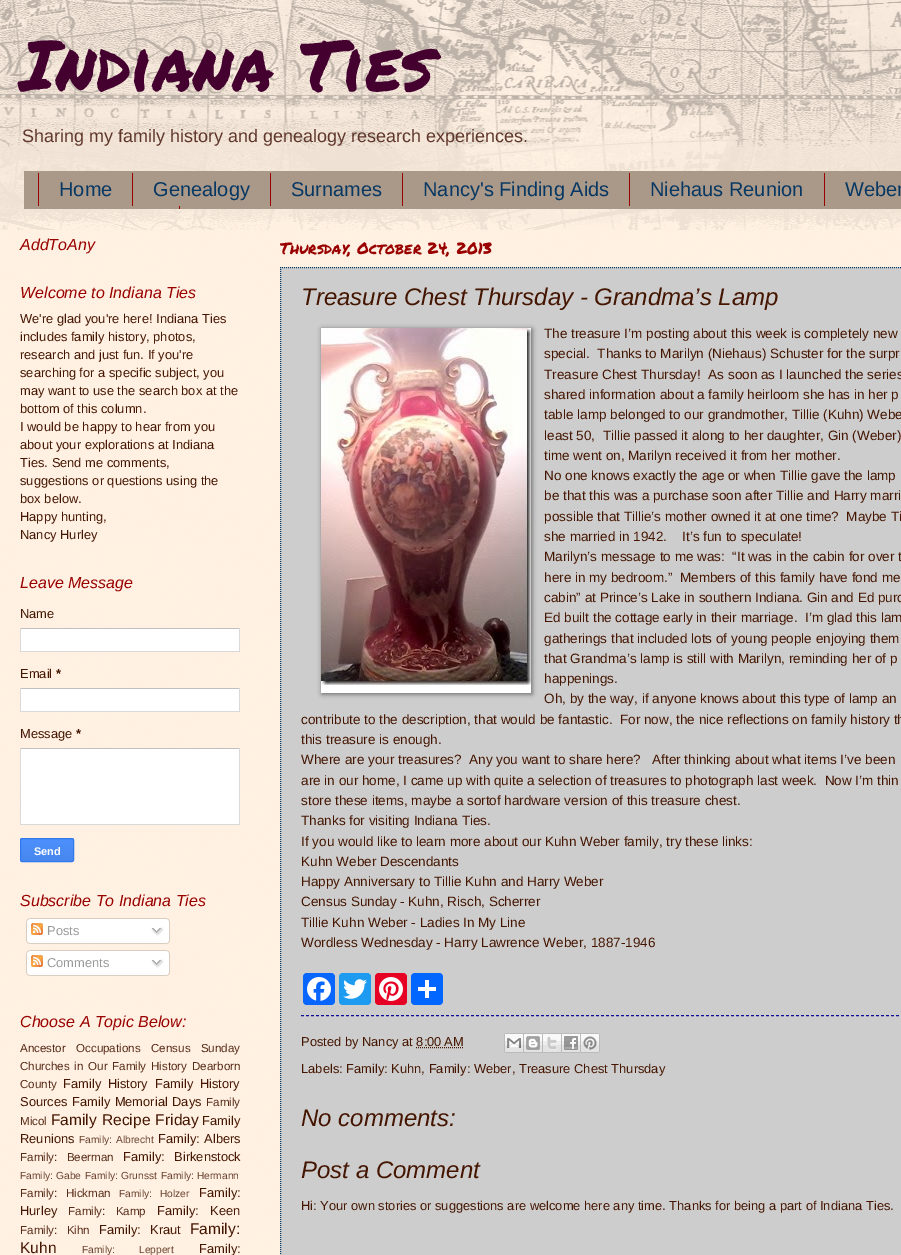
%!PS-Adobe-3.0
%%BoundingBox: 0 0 901 1255
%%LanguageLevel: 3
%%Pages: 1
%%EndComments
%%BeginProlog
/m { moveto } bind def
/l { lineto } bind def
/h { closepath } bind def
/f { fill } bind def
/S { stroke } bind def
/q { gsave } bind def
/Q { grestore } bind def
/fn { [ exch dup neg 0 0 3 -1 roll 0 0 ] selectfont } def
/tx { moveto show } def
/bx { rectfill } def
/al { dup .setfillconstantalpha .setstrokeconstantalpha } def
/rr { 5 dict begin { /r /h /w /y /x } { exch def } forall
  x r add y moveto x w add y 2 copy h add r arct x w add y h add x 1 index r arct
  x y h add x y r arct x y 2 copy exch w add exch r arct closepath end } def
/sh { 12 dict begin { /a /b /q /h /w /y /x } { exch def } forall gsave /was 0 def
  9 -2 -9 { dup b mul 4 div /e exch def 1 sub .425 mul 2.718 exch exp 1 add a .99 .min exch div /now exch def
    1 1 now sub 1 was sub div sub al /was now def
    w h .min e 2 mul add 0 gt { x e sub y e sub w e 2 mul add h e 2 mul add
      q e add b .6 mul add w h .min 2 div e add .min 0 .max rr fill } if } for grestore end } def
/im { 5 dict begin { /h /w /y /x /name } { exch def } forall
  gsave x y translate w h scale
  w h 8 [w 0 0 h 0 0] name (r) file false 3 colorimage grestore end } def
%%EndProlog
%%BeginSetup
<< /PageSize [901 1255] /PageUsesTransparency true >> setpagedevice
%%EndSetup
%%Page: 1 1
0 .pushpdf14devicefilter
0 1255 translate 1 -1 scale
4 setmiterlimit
1 0.933 0.867 setrgbcolor
0 0 901 1255 bx
(image0.raw) 0 0 901 1255 im
(image1.raw) 0 0 901 230 im
/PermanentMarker-Regular 70 fn
0.267 0 0.184 setrgbcolor
(Indiana Ties) 20 91 tx
/LiberationSans-Regular 18 fn
0.373 0.212 0.165 setrgbcolor
(Sharing my family history and genealogy research experiences.) 22 142 tx
0.667 0.6 0.533 setrgbcolor
24 171 877 38 bx
0.6 0 0 setrgbcolor
132 173 1 33 bx
38 173 1 33 bx
/LiberationSans-Regular 20 fn
0.027 0.216 0.388 setrgbcolor
(Home) 59 196 tx
0.6 0 0 setrgbcolor
270 173 1 33 bx
0.027 0.216 0.388 setrgbcolor
(Genealogy) 153 196 tx
0.6 0 0 setrgbcolor
402 173 1 33 bx
0.027 0.216 0.388 setrgbcolor
(Surnames) 291 196 tx
0.6 0 0 setrgbcolor
629 173 1 33 bx
0.027 0.216 0.388 setrgbcolor
(Nancy's Finding Aids) 423 196 tx
0.6 0 0 setrgbcolor
824 173 1 33 bx
0.027 0.216 0.388 setrgbcolor
(Niehaus Reunion) 650 196 tx
(Weber) 845 196 tx
0.6 0 0 setrgbcolor
179 206 1 3 bx
/LiberationSans-Italic 16 fn
(AddToAny) 20 250 tx
(Welcome to Indiana Ties) 20 298 tx
/LiberationSans-Regular 12.9 fn
0.267 0.082 0 setrgbcolor
(We're glad you're here! Indiana Ties) 20 323 tx
(includes family history, photos,) 20 341 tx
(research and just fun. If you're) 20 359 tx
(searching for a specific subject, you) 20 377 tx
(may want to use the search box at the) 20 395 tx
(bottom of this column.) 20 413 tx
(I would be happy to hear from you) 20 431 tx
(about your explorations at Indiana) 20 449 tx
(Ties. Send me comments,) 20 467 tx
(suggestions or questions using the) 20 485 tx
(box below.) 20 503 tx
(Happy hunting,) 20 521 tx
(Nancy Hurley) 20 539 tx
/LiberationSans-Italic 16 fn
0.6 0 0 setrgbcolor
(Leave Message) 20 588 tx
/LiberationSans-Regular 12.9 fn
0.267 0.082 0 setrgbcolor
(Name) 20 618 tx
1 setgray
21 629 218 22 bx
0.753 setgray
20 628 220 1 bx
0.851 setgray
239 628 1 24 bx
20 651 220 1 bx
20 628 1 24 bx
0.267 0.082 0 setrgbcolor
(Email) 20 678 tx
/LiberationSans-Bold 12.9 fn
(*) 56 678 tx
1 setgray
21 689 218 22 bx
0.753 setgray
20 688 220 1 bx
0.851 setgray
239 688 1 24 bx
20 711 220 1 bx
20 688 1 24 bx
/LiberationSans-Regular 12.9 fn
0.267 0.082 0 setrgbcolor
(Message) 20 738 tx
/LiberationSans-Bold 12.9 fn
(*) 76 738 tx
1 setgray
21 749 218 75 bx
0.753 setgray
20 748 220 1 bx
0.851 setgray
239 748 1 77 bx
20 824 220 1 bx
20 748 1 77 bx
q
20 838 54 24 2 rr clip newpath
q 20 839 m 74 839 l 74 861 l 20 861 l h clip newpath
<< /ShadingType 2 /ColorSpace /DeviceRGB /Coords [47 839 47 861] /Extend [true true] /Function << /FunctionType 2 /Domain [0 1] /C0 [0.302 0.565 0.996] /C1 [0.278 0.529 0.929] /N 1 >> >> shfill Q
Q
0.188 0.475 0.929 setrgbcolor
20.5 838.5 53 23 1.5 rr S
/LiberationSans-Bold 11 fn
1 setgray
(Send) 34 855 tx
/LiberationSans-Italic 16 fn
0.6 0 0 setrgbcolor
(Subscribe To Indiana Ties) 20 906 tx
(image2.raw) 26 918 144 23 im
(image3.raw) 31 923 12 12 im
/LiberationSans-Regular 12.9 fn
0.6 setgray
(Posts) 47 935 tx
(image4.raw) 151 927 13 9 im
(image5.raw) 26 941 144 3 im
(image6.raw) 26 950 144 23 im
(image3.raw) 31 955 12 12 im
(Comments) 47 967 tx
(image4.raw) 151 959 13 9 im
(image7.raw) 26 973 144 3 im
/LiberationSans-Italic 16 fn
0.6 0 0 setrgbcolor
(Choose A Topic Below:) 20 1027 tx
/LiberationSans-Regular 11.6 fn
0.341 0.169 0.09 setrgbcolor
20 1052 m 7 0 32 (Ancestor Occupations) widthshow
151 1052 m 7 0 32 (Census Sunday) widthshow
20 1070 m 1.5 0 32 (Churches in Our Family History) widthshow
(Dearborn) 192 1070 tx
(County) 20 1088 tx
/LiberationSans-Regular 12.9 fn
0.267 0.082 0 setrgbcolor
63 1088 m 3 0 32 (Family History) widthshow
155 1088 m 3 0 32 (Family History) widthshow
(Sources) 20 1106 tx
72 1106 m 1 0 32 (Family Memorial Days) widthshow
/LiberationSans-Regular 11.6 fn
0.341 0.169 0.09 setrgbcolor
(Family) 206 1106 tx
(Micol) 20 1125 tx
/LiberationSans-Regular 15.5 fn
0.267 0.082 0 setrgbcolor
51 1125 m 1 0 32 (Family Recipe Friday) widthshow
/LiberationSans-Regular 12.9 fn
(Family) 202 1125 tx
(Reunions) 20 1143 tx
/LiberationSans-Regular 10.25 fn
0.412 0.255 0.176 setrgbcolor
(Family:) 79 1143 tx
(Albrecht) 116 1143 tx
/LiberationSans-Regular 12.9 fn
0.267 0.082 0 setrgbcolor
158 1143 m 1 0 32 (Family: Albers) widthshow
/LiberationSans-Regular 11.6 fn
0.341 0.169 0.09 setrgbcolor
20 1161 m 6 0 32 (Family: Beerman) widthshow
/LiberationSans-Regular 12.9 fn
0.267 0.082 0 setrgbcolor
123 1161 m 6 0 32 (Family: Birkenstock) widthshow
/LiberationSans-Regular 10.25 fn
0.412 0.255 0.176 setrgbcolor
(Family: Gabe) 20 1179 tx
(Family: Grunsst) 85 1179 tx
(Family: Hermann) 161 1179 tx
/LiberationSans-Regular 11.6 fn
0.341 0.169 0.09 setrgbcolor
20 1197 m 5 0 32 (Family: Hickman) widthshow
/LiberationSans-Regular 10.25 fn
0.412 0.255 0.176 setrgbcolor
119 1197 m 5 0 32 (Family: Holzer) widthshow
/LiberationSans-Regular 12.9 fn
0.267 0.082 0 setrgbcolor
(Family:) 199 1197 tx
(Hurley) 20 1215 tx
/LiberationSans-Regular 11.6 fn
0.341 0.169 0.09 setrgbcolor
68 1215 m 7 0 32 (Family: Kamp) widthshow
/LiberationSans-Regular 12.9 fn
0.267 0.082 0 setrgbcolor
157 1215 m 8 0 32 (Family: Keen) widthshow
/LiberationSans-Regular 11.6 fn
0.341 0.169 0.09 setrgbcolor
20 1234 m 6 0 32 (Family: Kihn) widthshow
/LiberationSans-Regular 12.9 fn
0.267 0.082 0 setrgbcolor
99 1234 m 6 0 32 (Family: Kraut) widthshow
/LiberationSans-Regular 15.5 fn
(Family:) 190 1234 tx
(Kuhn) 20 1253 tx
/LiberationSans-Regular 10.25 fn
0.412 0.255 0.176 setrgbcolor
82 1253 m 21 0 32 (Family: Leppert) widthshow
/LiberationSans-Regular 12.9 fn
0.267 0.082 0 setrgbcolor
(Family:) 199 1253 tx
/PermanentMarker-Regular 16 fn
0.6 0 0 setrgbcolor
(Thursday, October 24, 2013) 280 254 tx
0.804 setgray
280 267 621 988 bx
0.027 0.216 0.388 setrgbcolor
[1 1] 0 setdash
280 267.5 m 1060 267.5 l S
280.5 267 m 280.5 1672 l S
/LiberationSans-Italic 24 fn
0.267 0.082 0 setrgbcolor
(Treasure Chest Thursday - Grandma’s Lamp) 301 305 tx
0 setgray
322 329 210 365 0 2.5 0.5 sh
1 setgray
321 685 210 8 bx
(image8.raw) 321 328 210 357 im
/LiberationSans-Regular 13.5 fn
0.267 0.082 0 setrgbcolor
(The treasure I’m posting about this week is completely new) 544 338 tx
(special.  Thanks to Marilyn \(Niehaus\) Schuster for the surpr) 544 358 tx
(Treasure Chest Thursday!  As soon as I launched the series) 544 379 tx
(shared information about a family heirloom she has in her p) 544 399 tx
(table lamp belonged to our grandmother, Tillie \(Kuhn\) Webe) 544 419 tx
(least 50,  Tillie passed it along to her daughter, Gin \(Weber\)) 544 440 tx
(time went on, Marilyn received it from her mother.) 544 460 tx
(No one knows exactly the age or when Tillie gave the lamp) 544 480 tx
(be that this was a purchase soon after Tillie and Harry marri) 544 500 tx
(possible that Tillie’s mother owned it at one time?  Maybe Ti) 544 521 tx
(she married in 1942.    It’s fun to speculate!) 544 541 tx
(Marilyn’s message to me was:  “It was in the cabin for over t) 544 561 tx
(here in my bedroom.”  Members of this family have fond me) 544 582 tx
(cabin” at Prince’s Lake in southern Indiana. Gin and Ed purc) 544 602 tx
(Ed built the cottage early in their marriage.  I’m glad this lam) 544 622 tx
(gatherings that included lots of young people enjoying them) 544 643 tx
(that Grandma’s lamp is still with Marilyn, reminding her of p) 544 663 tx
(happenings.) 544 683 tx
(Oh, by the way, if anyone knows about this type of lamp an) 544 703 tx
(contribute to the description, that would be fantastic.  For now, the nice reflections on family history th) 301 724 tx
(this treasure is enough.) 301 744 tx
(Where are your treasures?  Any you want to share here?   After thinking about what items I’ve been) 301 764 tx
(are in our home, I came up with quite a selection of treasures to photograph last week.  Now I’m thin) 301 785 tx
(store these items, maybe a sortof hardware version of this treasure chest.) 301 805 tx
(Thanks for visiting Indiana Ties.) 301 825 tx
(If you would like to learn more about our Kuhn Weber family, try these links:) 301 846 tx
(Kuhn Weber Descendants) 301 866 tx
(Happy Anniversary to Tillie Kuhn and Harry Weber) 301 886 tx
(Census Sunday - Kuhn, Risch, Scherrer) 301 906 tx
(Tillie Kuhn Weber - Ladies In My Line) 301 927 tx
(Wordless Wednesday - Harry Lawrence Weber, 1887-1946) 301 947 tx
0.031 0.4 1 setrgbcolor
303 973 32 32 4 rr f
(image9.raw) 307 977 24 24 im
0.114 0.608 0.941 setrgbcolor
339 973 32 32 4 rr f
(image10.raw) 343 979 24 20 im
0.902 0 0.137 setrgbcolor
375 973 32 32 4 rr f
(image11.raw) 379 977 24 24 im
0.004 0.4 1 setrgbcolor
411 973 32 32 4 rr f
1 setgray
425 980 4 18 bx
418 987 18 4 bx
0.055 0.055 0.6 setrgbcolor
[3 2] 0 setdash
301 1015.5 m 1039 1015.5 l S
/LiberationSans-Regular 12.9 fn
0.267 0.082 0 setrgbcolor
(Posted by Nancy at 8:00 AM) 301 1046 tx
(image12.raw) 504 1033 20 20 im
(image13.raw) 524 1033 19 20 im
(image14.raw) 543 1033 19 20 im
(image15.raw) 562 1033 19 20 im
(image16.raw) 581 1033 19 20 im
[1 1] 0 setdash
416 1047.5 m 463 1047.5 l S
(Labels: Family: Kuhn, Family: Weber, Treasure Chest Thursday) 301 1073 tx
/LiberationSans-Italic 24 fn
(No comments:) 301 1126 tx
(Post a Comment) 301 1178 tx
/LiberationSans-Regular 12.9 fn
(Hi: Your own stories or suggestions are welcome here any time. Thanks for being a part of Indiana Ties.) 301 1210 tx
.poppdf14devicefilter showpage
%%EOF
